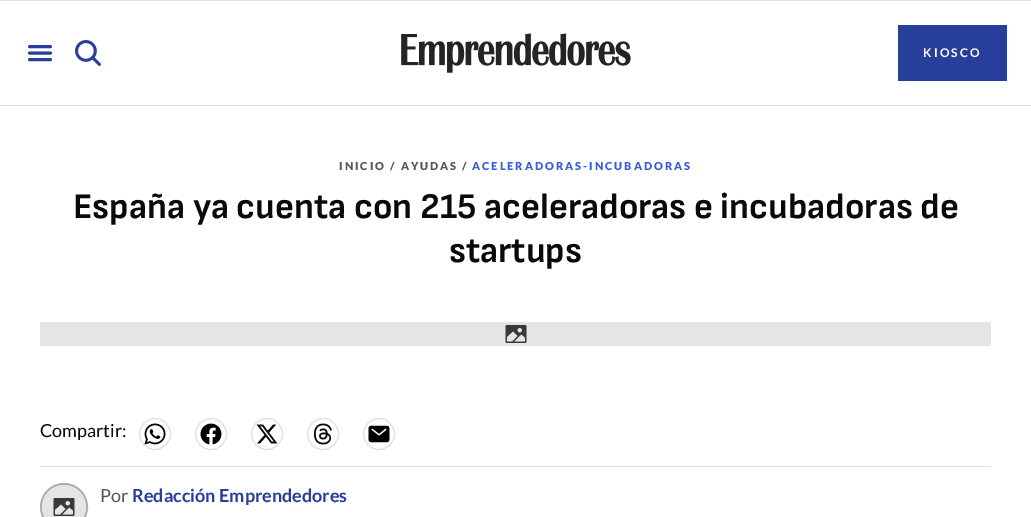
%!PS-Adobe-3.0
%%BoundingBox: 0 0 1031 517
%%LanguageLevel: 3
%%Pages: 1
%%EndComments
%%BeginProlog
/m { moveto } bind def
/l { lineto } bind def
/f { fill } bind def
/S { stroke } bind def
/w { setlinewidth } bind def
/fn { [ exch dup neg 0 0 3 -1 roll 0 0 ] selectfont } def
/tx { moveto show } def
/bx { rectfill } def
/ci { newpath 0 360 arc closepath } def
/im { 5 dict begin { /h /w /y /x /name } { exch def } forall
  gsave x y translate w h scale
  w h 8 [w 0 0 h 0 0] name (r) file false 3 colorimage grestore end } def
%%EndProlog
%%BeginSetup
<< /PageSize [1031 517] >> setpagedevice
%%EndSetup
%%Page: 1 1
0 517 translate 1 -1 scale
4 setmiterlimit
1 setgray
0 0 1031 517 bx
0.871 setgray
0 0 1031 1 bx
0 105 1031 1 bx
0.153 0.243 0.604 setrgbcolor
3 w
1 setlinecap
29.5 46.5 m 50.5 46.5 l 29.5 53 m 50.5 53 l 29.5 59.5 m 50.5 59.5 l S
(image0.raw) 75 40 26 26 im
(image1.raw) 401 33 230 40 im
898 25 109 56 bx
/Lato-Bold 12 fn
1 setgray
923 57 m 2.25 0 (KIOSCO) ashow
/Lato-Black 11 fn
0.341 setgray
339 170 m 2 0 (INICIO / AYUDAS /) ashow
0.231 0.357 0.859 setrgbcolor
472 170 m 2 0 (ACELERADORAS-INCUBADORAS) ashow
/SofiaSans-Bold 36 fn
0.039 setgray
(España ya cuenta con 215 aceleradoras e incubadoras de) 73 218 tx
(startups) 449 262 tx
0.898 setgray
40 322 951 24 bx
(image2.raw) 505 325 22 18 im
/Lato-Regular 18 fn
0.039 setgray
(Compartir:) 40 437 tx
0.871 setgray
1 w
0 setlinecap
155 434 15.5 ci S
(image3.raw) 144 423 22 22 im
211 434 15.5 ci S
(image4.raw) 200 423 22 22 im
267 434 15.5 ci S
(image5.raw) 256 424 22 20 im
323 434 15.5 ci S
(image6.raw) 313 423 19 22 im
379 434 15.5 ci S
(image7.raw) 368 425 22 18 im
40 466 951 1 bx
0.682 setgray
2 w
64 507 23 ci S
0.898 setgray
64 507 22 ci f
(image2.raw) 53 498 22 18 im
0.341 setgray
(Por) 100 502 tx
/Lato-Bold 18 fn
0.153 0.243 0.604 setrgbcolor
(Redacción Emprendedores) 132 502 tx
showpage
%%EOF
